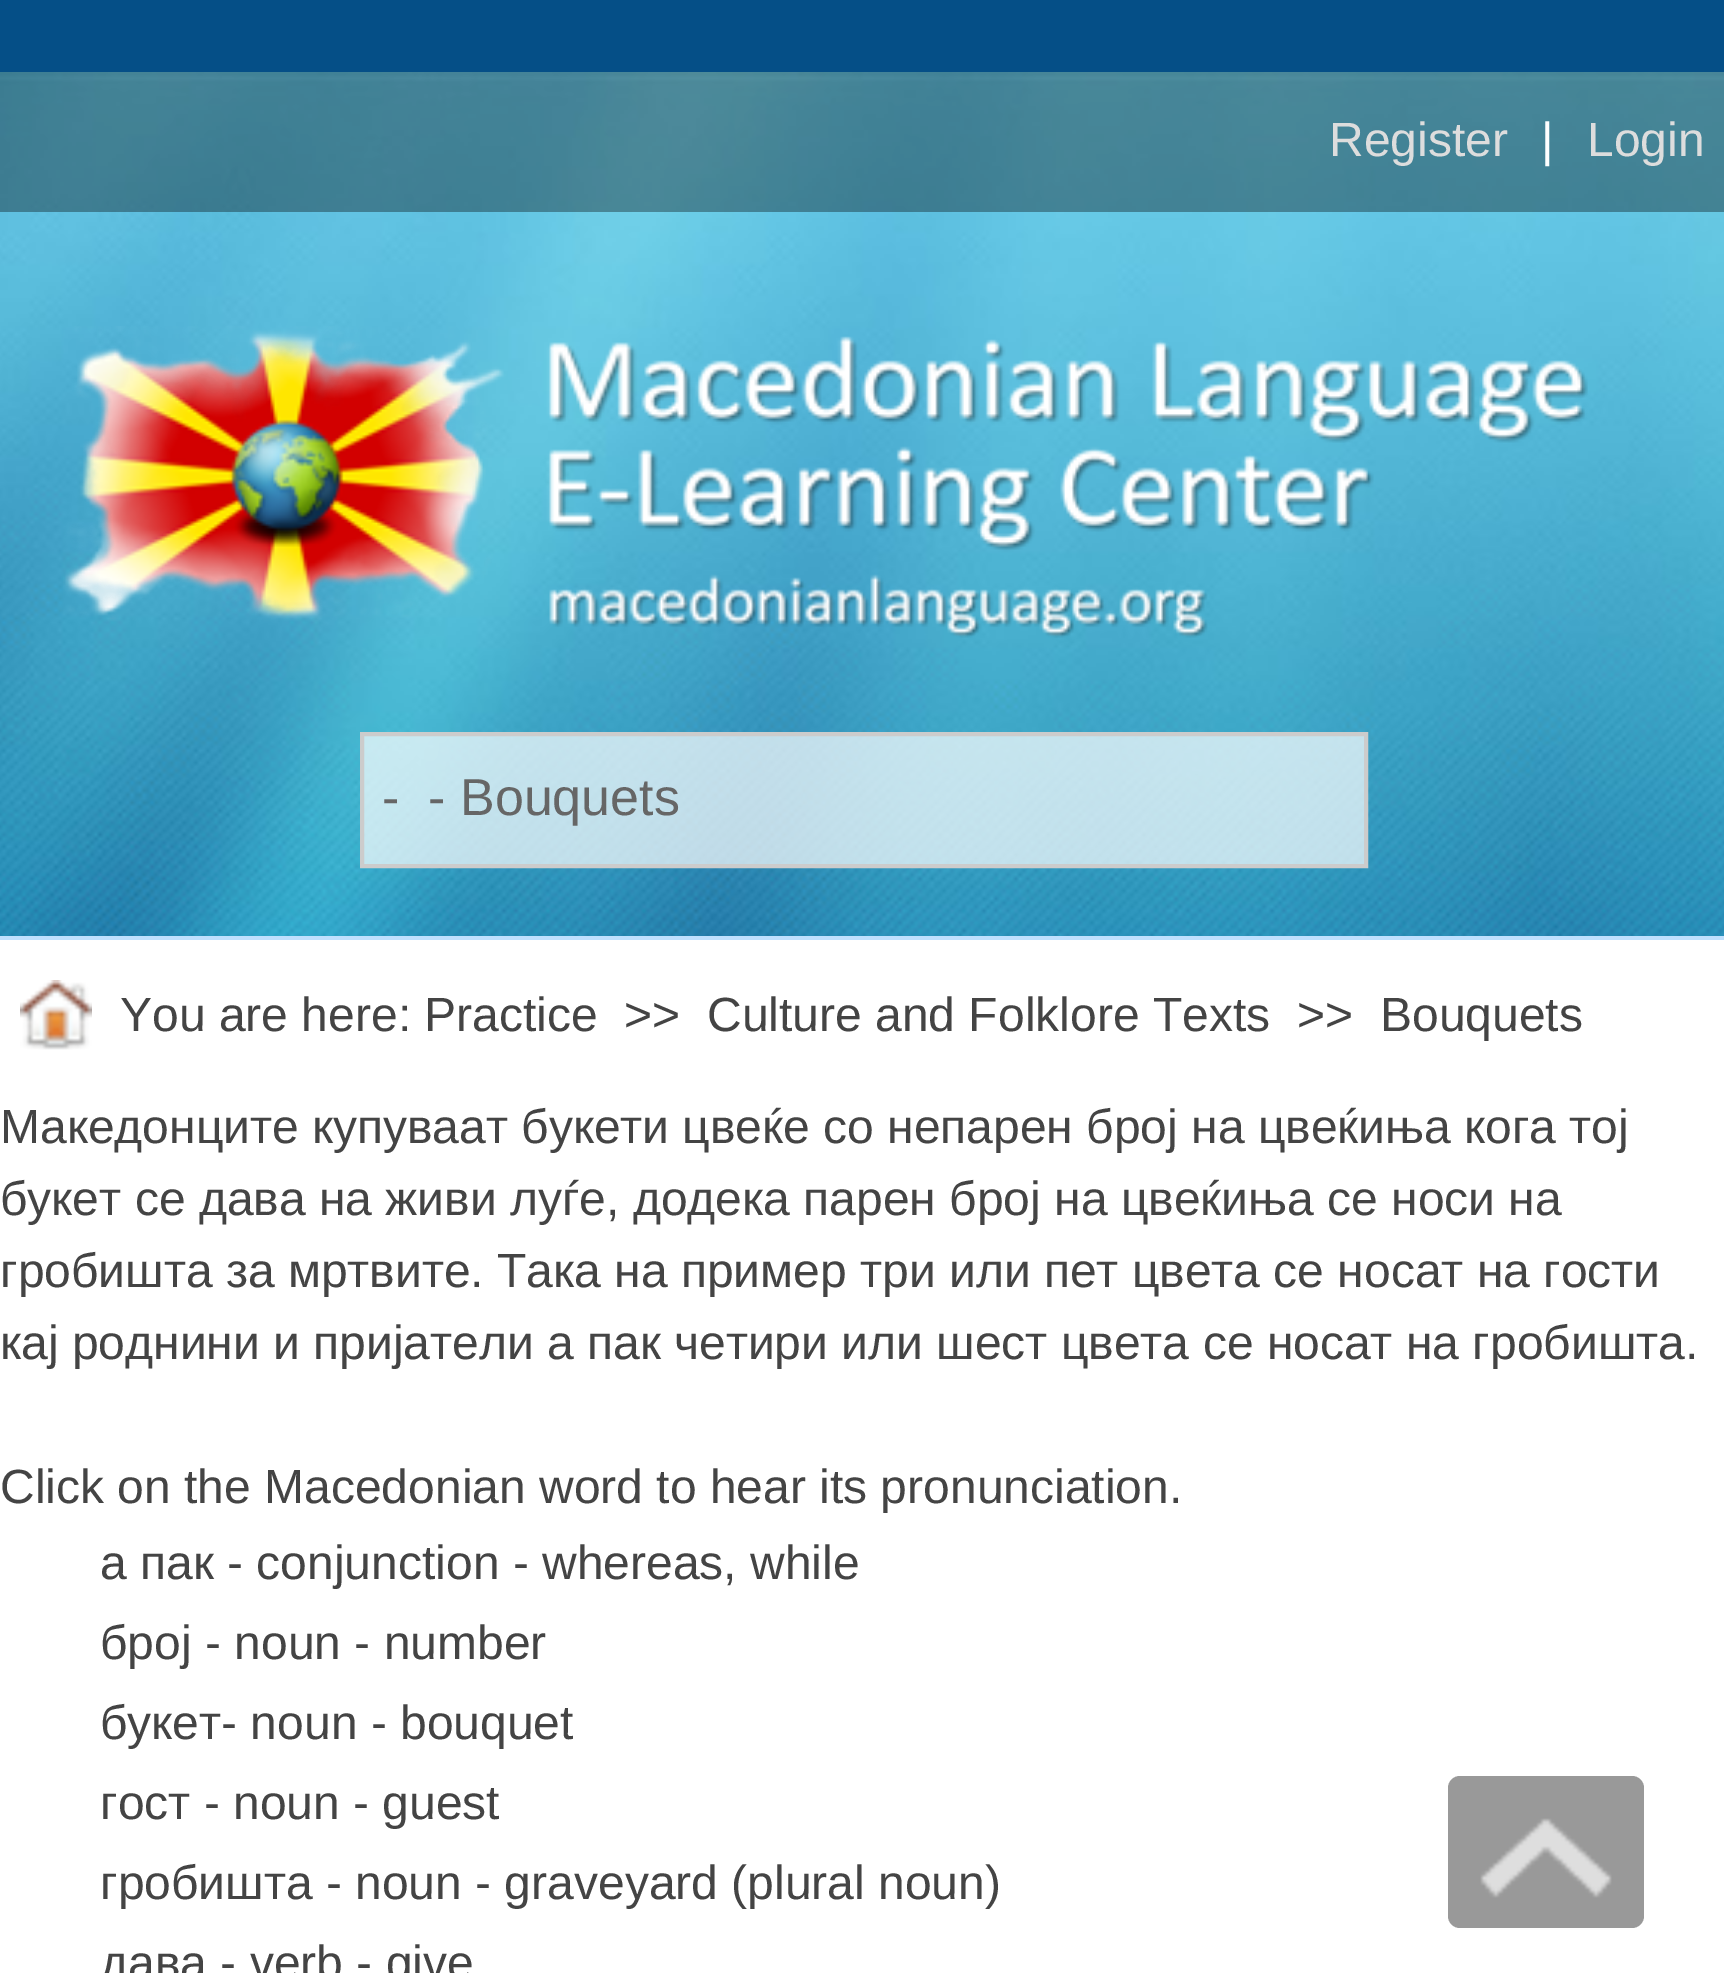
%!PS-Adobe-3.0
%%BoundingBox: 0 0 1724 1973
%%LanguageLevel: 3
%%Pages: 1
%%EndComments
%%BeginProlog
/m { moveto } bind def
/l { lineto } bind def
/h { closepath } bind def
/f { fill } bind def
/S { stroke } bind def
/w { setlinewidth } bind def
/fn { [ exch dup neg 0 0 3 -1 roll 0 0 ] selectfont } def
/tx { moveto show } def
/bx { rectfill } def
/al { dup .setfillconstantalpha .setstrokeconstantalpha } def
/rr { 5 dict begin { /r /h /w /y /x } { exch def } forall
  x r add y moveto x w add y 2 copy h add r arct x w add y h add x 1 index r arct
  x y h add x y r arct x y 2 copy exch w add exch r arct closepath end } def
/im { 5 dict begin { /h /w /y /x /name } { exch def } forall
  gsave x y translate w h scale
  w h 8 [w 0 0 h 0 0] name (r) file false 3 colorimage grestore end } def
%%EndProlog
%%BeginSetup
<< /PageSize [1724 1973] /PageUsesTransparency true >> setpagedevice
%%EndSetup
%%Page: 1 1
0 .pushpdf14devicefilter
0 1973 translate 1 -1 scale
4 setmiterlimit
0.02 0.31 0.529 setrgbcolor
0 0 1724 1973 bx
(image0.raw) 0 72 1724 864 im
0.749 0.878 0.996 setrgbcolor
0 936 1724 4 bx
0.35 al
0 setgray
0 72 1724 140 bx
/LiberationSans-Regular 48 fn
1 al
0.867 setgray
(Register) 1329 156 tx
1 setgray
(|) 1541 156 tx
0.867 setgray
(Login) 1587 156 tx
(image1.raw) 63 326 1525 312 im
0.7 al
1 setgray
362 734 m 1366 734 l 1366 866 l 362 866 l h f
1 al
0.8 setgray
4 w
362 734 m 1366 734 l 1366 866 l 362 866 l h S
/LiberationSans-Regular 52 fn
0.4 setgray
(-  - Bouquets) 382 815 tx
1 setgray
0 940 1724 1033 bx
(image2.raw) 20 980 72 70 im
/LiberationSans-Regular 48 fn
0.267 setgray
(You are here: Practice) 120 1031 tx
(>>) 624 1031 tx
(Culture and Folklore Texts) 707 1031 tx
(>>) 1297 1031 tx
(Bouquets) 1380 1031 tx
(Македонците купуваат букети цвеќе со непарен број на цвеќиња кога тој) 0 1143 tx
(букет се дава на живи луѓе, додека парен број на цвеќиња се носи на) 0 1215 tx
(гробишта за мртвите. Така на пример три или пет цвета се носат на гости) 0 1287 tx
(кај роднини и пријатели а пак четири или шест цвета се носат на гробишта.) 0 1359 tx
(Click on the Macedonian word to hear its pronunciation.) 0 1503 tx
(a пак - conjunction - whereas, while) 100 1579 tx
(број - noun - number) 100 1659 tx
(букет- noun - bouquet) 100 1739 tx
(гост - noun - guest) 100 1819 tx
(гробишта - noun - graveyard \(plural noun\)) 100 1899 tx
(дава - verb - give) 100 1979 tx
0.6 setgray
1448 1776 196 152 12 rr f
(image3.raw) 1480 1818 132 80 im
.poppdf14devicefilter showpage
%%EOF
